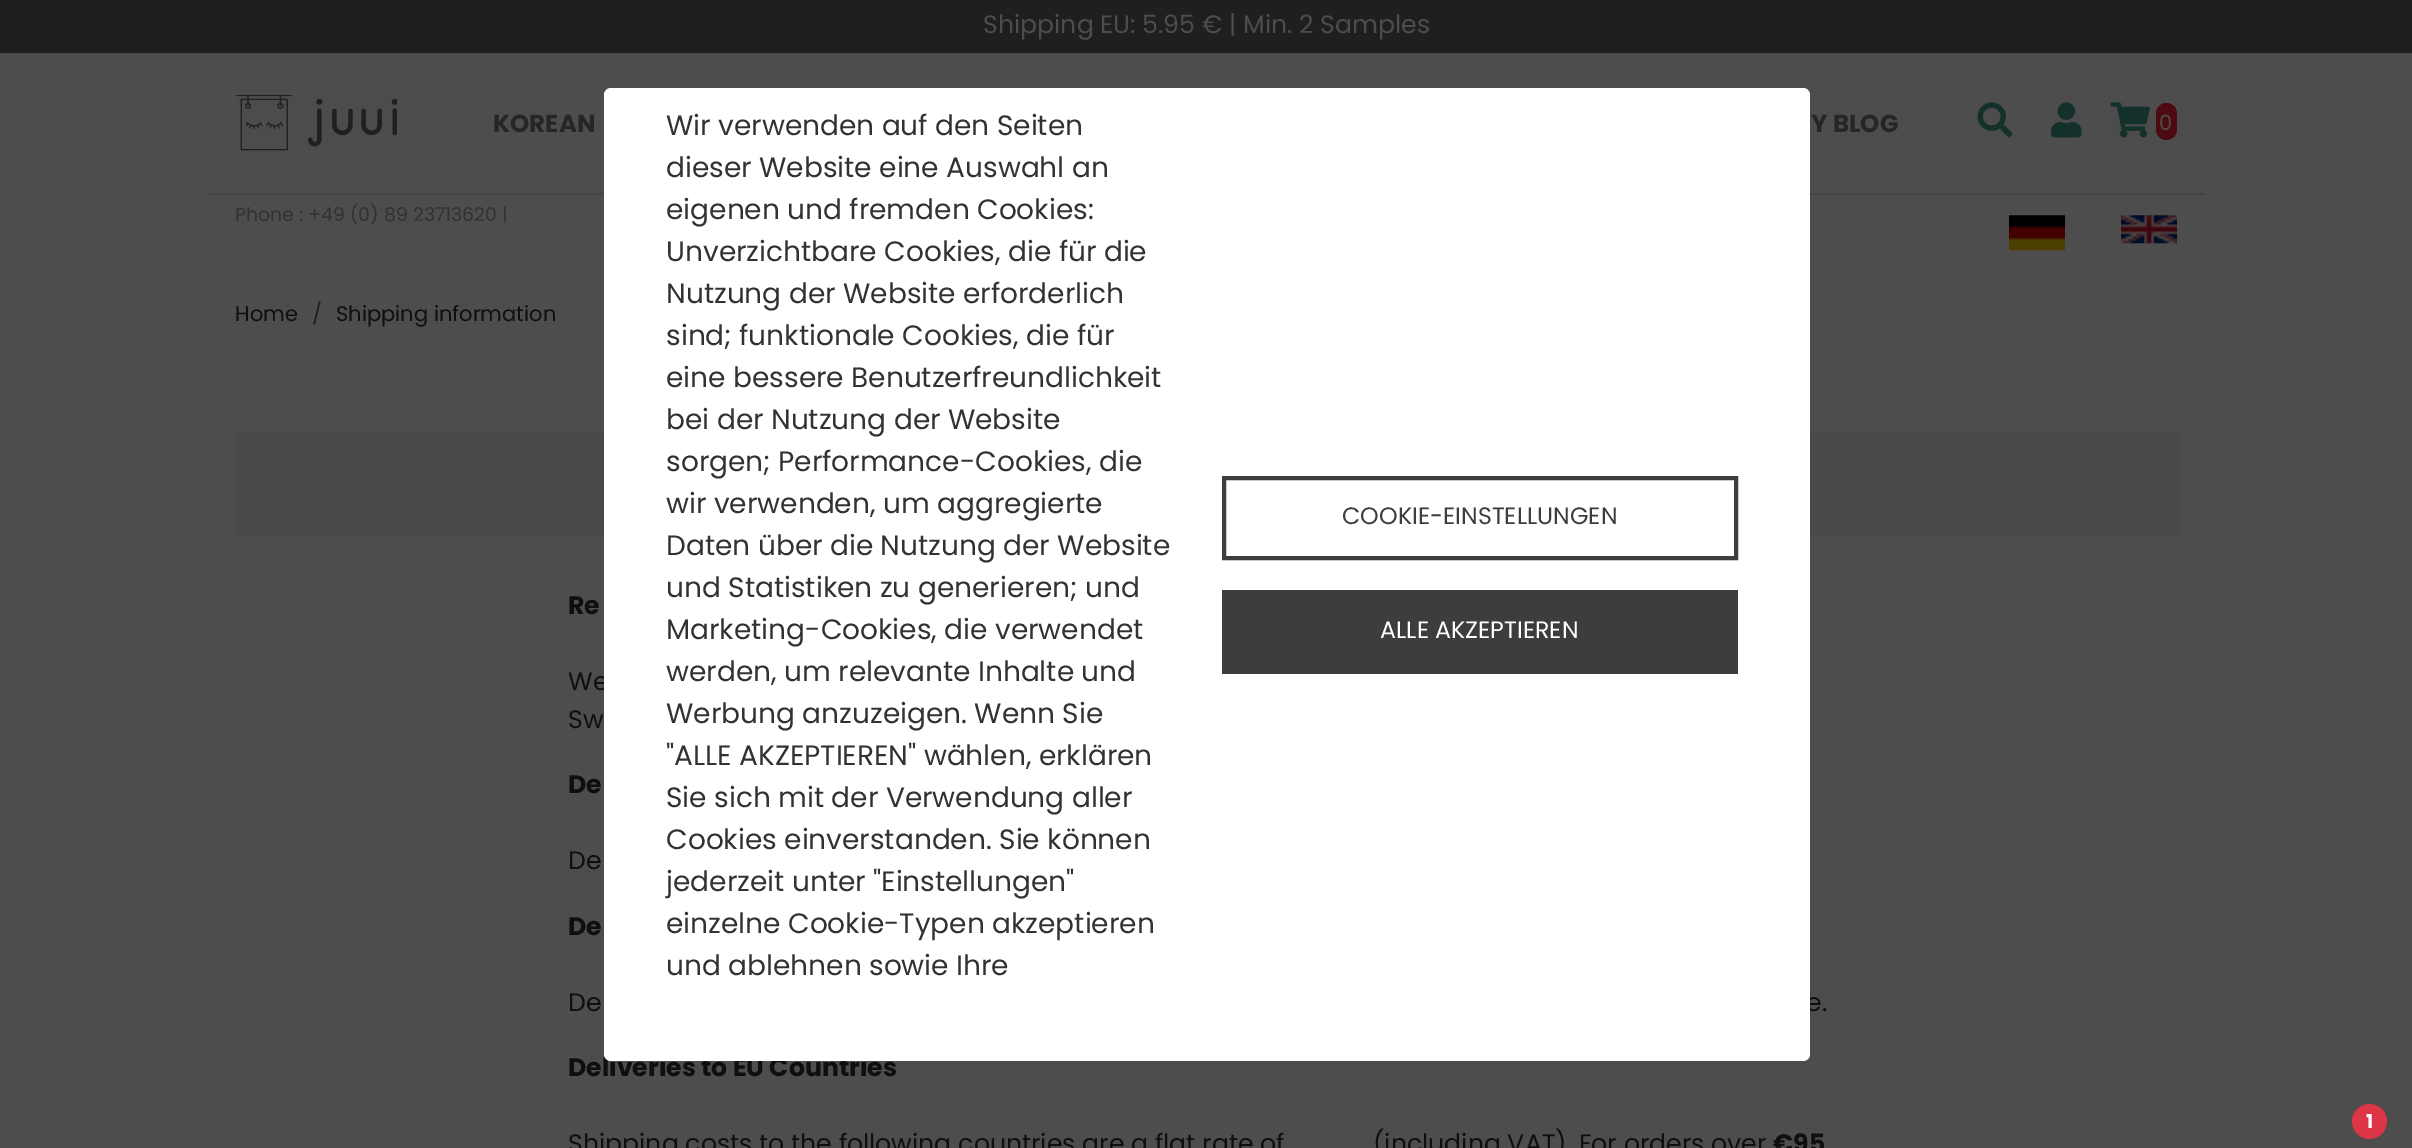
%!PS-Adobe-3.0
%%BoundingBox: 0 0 2412 1148
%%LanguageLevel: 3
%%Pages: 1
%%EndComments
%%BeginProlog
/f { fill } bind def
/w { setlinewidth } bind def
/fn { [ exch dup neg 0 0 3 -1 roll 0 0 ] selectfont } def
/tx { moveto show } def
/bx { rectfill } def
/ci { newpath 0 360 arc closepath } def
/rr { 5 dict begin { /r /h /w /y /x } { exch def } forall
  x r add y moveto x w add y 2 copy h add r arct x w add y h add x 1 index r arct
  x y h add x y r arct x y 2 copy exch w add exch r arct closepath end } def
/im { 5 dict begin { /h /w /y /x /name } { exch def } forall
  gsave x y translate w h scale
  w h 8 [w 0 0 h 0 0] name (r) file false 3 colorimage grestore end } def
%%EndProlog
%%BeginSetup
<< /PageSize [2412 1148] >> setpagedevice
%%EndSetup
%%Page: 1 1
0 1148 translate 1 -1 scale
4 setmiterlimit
0.302 setgray
0 0 2412 1148 bx
0.122 setgray
0 0 2412 53 bx
/Poppins-Regular 25.2 fn
0.302 setgray
(Shipping EU: 5.95 € | Min. 2 Samples) 983 33 tx
0.271 setgray
210 193 1995 2 bx
/Poppins-Regular 18.9 fn
0.196 setgray
(Phone : +49 \(0\) 89 23713620 |) 235 221 tx
(image0.raw) 2009 215 56 36 im
(image1.raw) 2121 215 56 29 im
(image2.raw) 236 95 161 56 im
/Poppins-Bold 24.5 fn
0.149 setgray
(KOREAN) 493 132 tx
(Y BLOG) 1811 132 tx
(image3.raw) 1977 102 36 36 im
(image4.raw) 2051 102 31 36 im
(image5.raw) 2110 102 40 36 im
0.302 0.043 0.067 setrgbcolor
2156 103 21 37 10.5 rr f
/Poppins-Regular 21 fn
0.302 setgray
(0) 2159 130 tx
0.863 0.208 0.271 setrgbcolor
2369.5 1121.5 17.5 ci f
/Poppins-Bold 19 fn
1 setgray
(1) 2366 1128 tx
0.286 setgray
236 432 1943 104 bx
/Poppins-Regular 25.2 fn
0.059 setgray
(We) 568 690 tx
(e.) 1806 1011 tx
/Poppins-Bold 25.2 fn
(Deliveries to EU Countries) 568 1076 tx
1 setgray
604 88 1206 973 7 rr f
/Poppins-Regular 28 fn
0.196 setgray
(Wir verwenden auf den Seiten) 666 135 tx
(dieser Website eine Auswahl an) 666 177 tx
(eigenen und fremden Cookies:) 666 219 tx
(Unverzichtbare Cookies, die für die) 666 261 tx
(Nutzung der Website erforderlich) 666 303 tx
(sind; funktionale Cookies, die für) 666 345 tx
(eine bessere Benutzerfreundlichkeit) 666 387 tx
(bei der Nutzung der Website) 666 429 tx
(sorgen; Performance-Cookies, die) 666 471 tx
(wir verwenden, um aggregierte) 666 513 tx
(Daten über die Nutzung der Website) 666 555 tx
(und Statistiken zu generieren; und) 666 597 tx
(Marketing-Cookies, die verwendet) 666 639 tx
(werden, um relevante Inhalte und) 666 681 tx
(Werbung anzuzeigen. Wenn Sie) 666 723 tx
("ALLE AKZEPTIEREN" wählen, erklären) 666 765 tx
(Sie sich mit der Verwendung aller) 666 807 tx
(Cookies einverstanden. Sie können) 666 849 tx
(jederzeit unter "Einstellungen") 666 891 tx
(einzelne Cookie-Typen akzeptieren) 666 933 tx
(und ablehnen sowie Ihre) 666 975 tx
0.239 setgray
4 w
1224 478 512 80 rectstroke
/Poppins-Regular 23.75 fn
(COOKIE-EINSTELLUNGEN) 1342 524 tx
1222 590 516 84 bx
1 setgray
(ALLE AKZEPTIEREN) 1380 638 tx
/Poppins-Regular 21 fn
0.059 setgray
(Home) 235 321 tx
0.122 setgray
(/) 312 321 tx
0.059 setgray
(Shipping information) 336 321 tx
/Poppins-Bold 25.2 fn
(Re) 568 614 tx
/Poppins-Regular 25.2 fn
(Sw) 568 728 tx
/Poppins-Bold 25.2 fn
(De) 568 793 tx
/Poppins-Regular 25.2 fn
(De) 568 869 tx
/Poppins-Bold 25.2 fn
(De) 568 935 tx
/Poppins-Regular 25.2 fn
(De) 568 1011 tx
(Shipping costs to the following countries are a flat rate of) 568 1152 tx
(\(including VAT\). For orders over) 1373 1152 tx
/Poppins-Bold 25.2 fn
(€95) 1773 1152 tx
showpage
%%EOF
